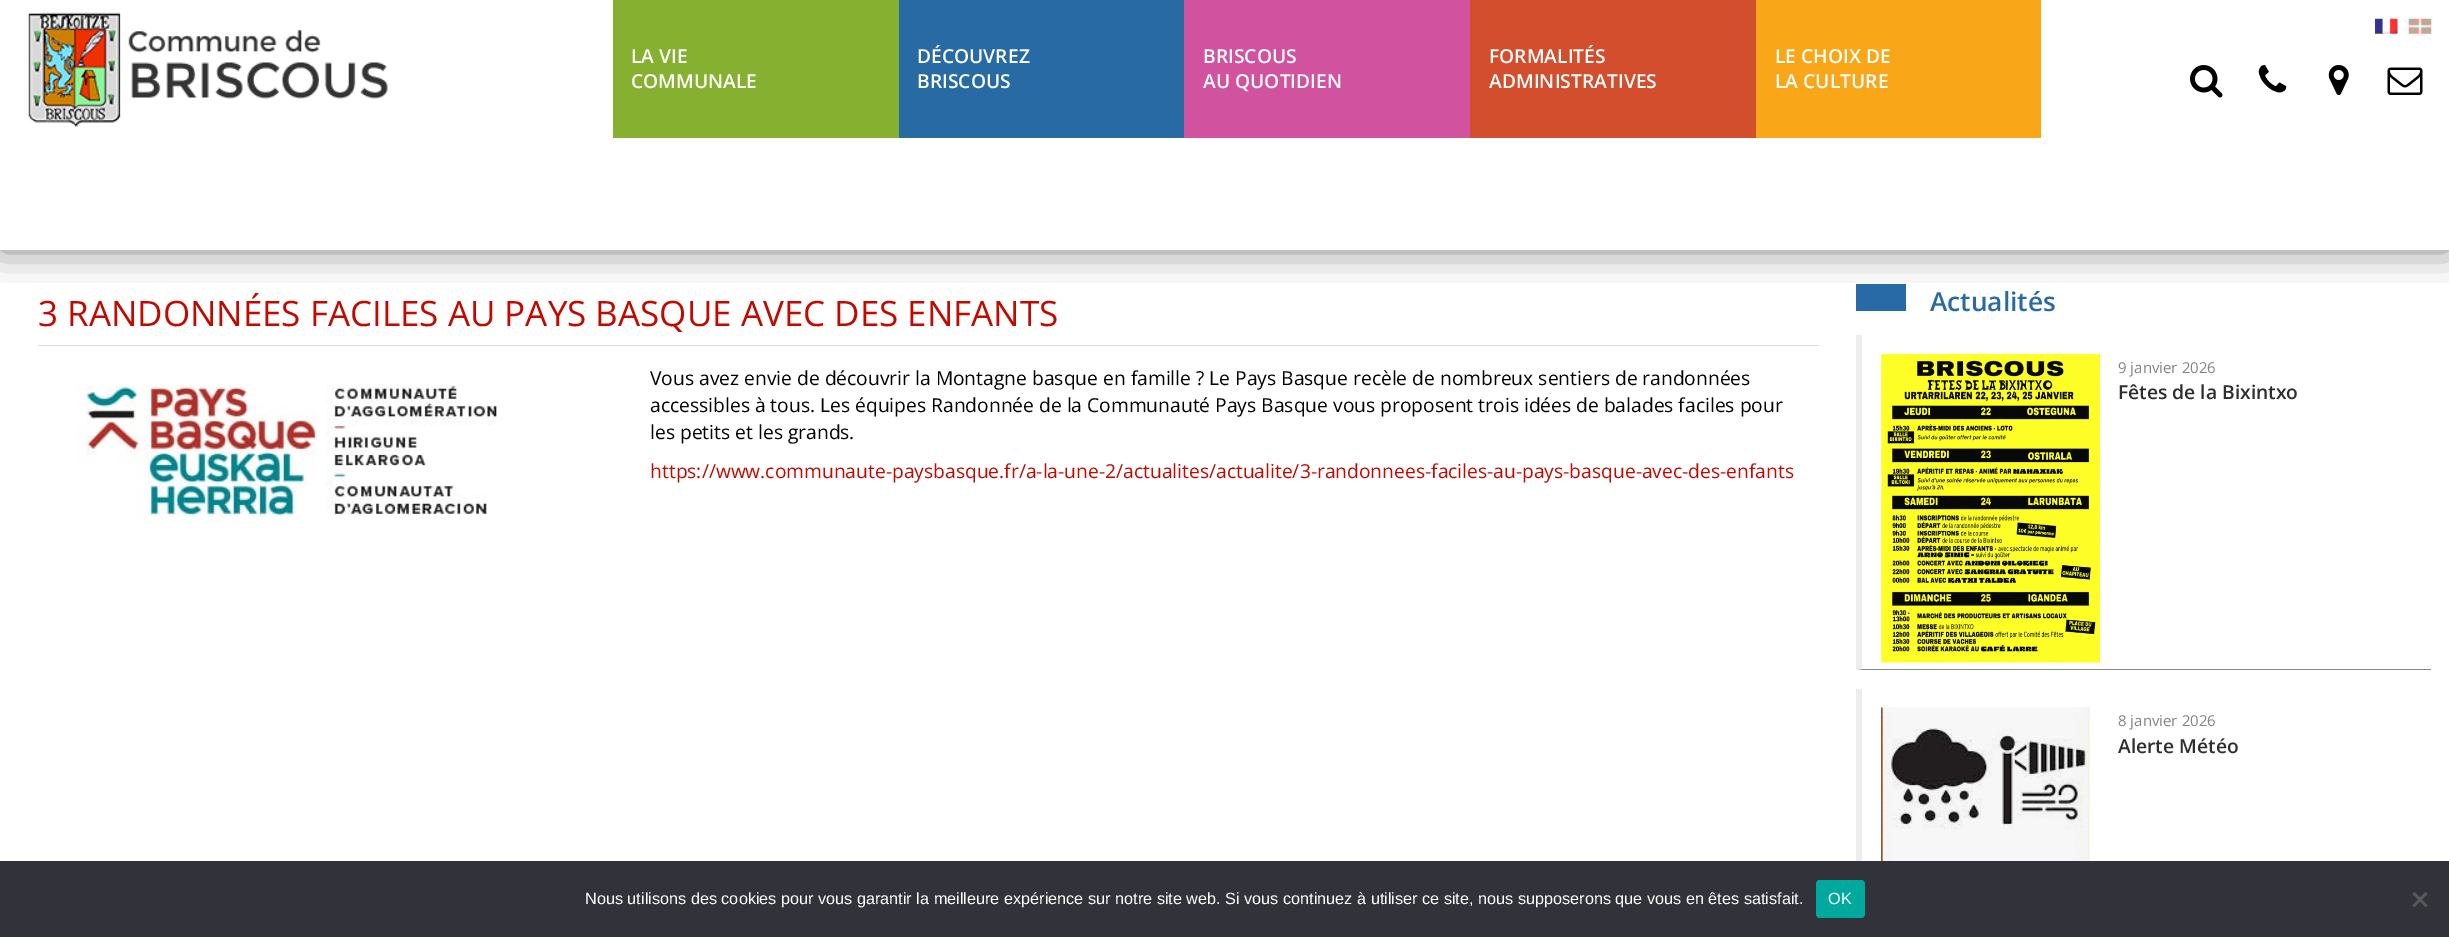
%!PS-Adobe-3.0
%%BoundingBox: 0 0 2449 937
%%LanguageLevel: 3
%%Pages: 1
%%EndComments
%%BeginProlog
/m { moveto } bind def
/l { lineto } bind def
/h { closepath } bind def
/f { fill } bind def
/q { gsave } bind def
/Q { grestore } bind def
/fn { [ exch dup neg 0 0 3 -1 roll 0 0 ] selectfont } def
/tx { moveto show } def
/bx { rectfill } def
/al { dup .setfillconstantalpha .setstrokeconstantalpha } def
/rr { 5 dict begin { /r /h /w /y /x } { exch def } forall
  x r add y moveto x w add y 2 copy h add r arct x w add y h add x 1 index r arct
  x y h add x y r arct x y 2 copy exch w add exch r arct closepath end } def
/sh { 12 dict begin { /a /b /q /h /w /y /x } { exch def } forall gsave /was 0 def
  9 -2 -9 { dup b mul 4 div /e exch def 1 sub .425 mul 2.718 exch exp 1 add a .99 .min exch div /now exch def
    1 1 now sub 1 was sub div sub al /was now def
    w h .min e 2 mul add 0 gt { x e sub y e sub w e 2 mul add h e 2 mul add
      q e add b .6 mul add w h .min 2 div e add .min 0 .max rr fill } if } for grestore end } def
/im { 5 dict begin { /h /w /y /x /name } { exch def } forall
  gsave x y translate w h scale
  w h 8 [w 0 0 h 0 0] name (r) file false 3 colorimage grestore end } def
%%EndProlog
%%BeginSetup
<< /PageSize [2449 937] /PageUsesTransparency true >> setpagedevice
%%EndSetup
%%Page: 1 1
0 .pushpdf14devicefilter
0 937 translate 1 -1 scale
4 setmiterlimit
1 setgray
0 0 2449 937 bx
q
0 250 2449 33 rectclip
0 setgray
0 0 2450 250 0 19 0.5 sh
Q
(image0.raw) 28 12 360 115 im
0.525 0.69 0.188 setrgbcolor
613 0 286 138 bx
/OpenSans-SemiBold 19.25 fn
1 setgray
(LA VIE) 631 63 tx
(COMMUNALE) 631 88 tx
0.157 0.416 0.643 setrgbcolor
899 0 285 138 bx
1 setgray
(DÉCOUVREZ) 917 63 tx
(BRISCOUS) 917 88 tx
0.82 0.322 0.62 setrgbcolor
1184 0 286 138 bx
1 setgray
(BRISCOUS) 1203 63 tx
(AU QUOTIDIEN) 1203 88 tx
0.827 0.306 0.173 setrgbcolor
1470 0 286 138 bx
1 setgray
(FORMALITÉS) 1489 63 tx
(ADMINISTRATIVES) 1489 88 tx
0.976 0.655 0.094 setrgbcolor
1756 0 285 138 bx
1 setgray
(LE CHOIX DE) 1775 63 tx
(LA CULTURE) 1775 88 tx
(image1.raw) 2375 18 23 16 im
(image2.raw) 2408 18 24 16 im
(image3.raw) 2190 65 33 33 im
(image4.raw) 2258 65 29 28 im
(image5.raw) 2328 65 21 30 im
(image6.raw) 2387 67 36 28 im
0.867 setgray
38 345 1781 1 bx
/OpenSans-Regular 35 fn
0.757 0.035 0 setrgbcolor
(3 RANDONNÉES FACILES AU PAYS BASQUE AVEC DES ENFANTS) 38 326 tx
(image7.raw) 76 385 421 140 im
/OpenSans-Regular 19.25 fn
0 setgray
(Vous avez envie de découvrir la Montagne basque en famille ? Le Pays Basque recèle de nombreux sentiers de randonnées) 650 385 tx
(accessibles à tous. Les équipes Randonnée de la Communauté Pays Basque vous proposent trois idées de balades faciles pour) 650 412 tx
(les petits et les grands.) 650 439 tx
0.757 0.035 0 setrgbcolor
(https://www.communaute-paysbasque.fr/a-la-une-2/actualites/actualite/3-randonnees-faciles-au-pays-basque-avec-des-enfants) 650 478 tx
0.157 0.416 0.647 setrgbcolor
1856 284 50 27 bx
/OpenSans-SemiBold 26.25 fn
(Actualités) 1930 311 tx
0.533 setgray
2431 670 m 1856 670 l 1862 669 l 2431 669 l h f
0.929 setgray
1856 670 m 1856 335 l 1862 335 l 1862 669 l h f
(image8.raw) 1881 353 219 310 im
/OpenSans-Regular 15 fn
0.51 setgray
(9 janvier 2026) 2118 373 tx
/OpenSans-SemiBold 19.25 fn
0.18 setgray
(Fêtes de la Bixintxo) 2118 399 tx
0.929 setgray
1856 902 m 1856 689 l 1862 689 l 1862 901 l h f
(image9.raw) 1881 707 209 154 im
/OpenSans-Regular 15 fn
0.51 setgray
(8 janvier 2026) 2118 726 tx
/OpenSans-SemiBold 19.25 fn
0.18 setgray
(Alerte Météo) 2118 753 tx
0.196 0.196 0.227 setrgbcolor
0 861 2449 76 bx
/LiberationSans-Regular 16.25 fn
1 setgray
(Nous utilisons des cookies pour vous garantir la meilleure expérience sur notre site web. Si vous continuez à utiliser ce site, nous supposerons que vous en êtes satisfait.) 585 904 tx
0 0.663 0.616 setrgbcolor
1816 880 49 38 4 rr f
1 setgray
(OK) 1828 904 tx
0.349 0.349 0.365 setrgbcolor
2425.5 892 m 2427.5 894 l 2414.5 907 l 2412.5 905.5 l h f
2412.5 894 m 2414.5 892 l 2427.5 905.5 l 2425.5 907 l h f
.poppdf14devicefilter showpage
%%EOF
